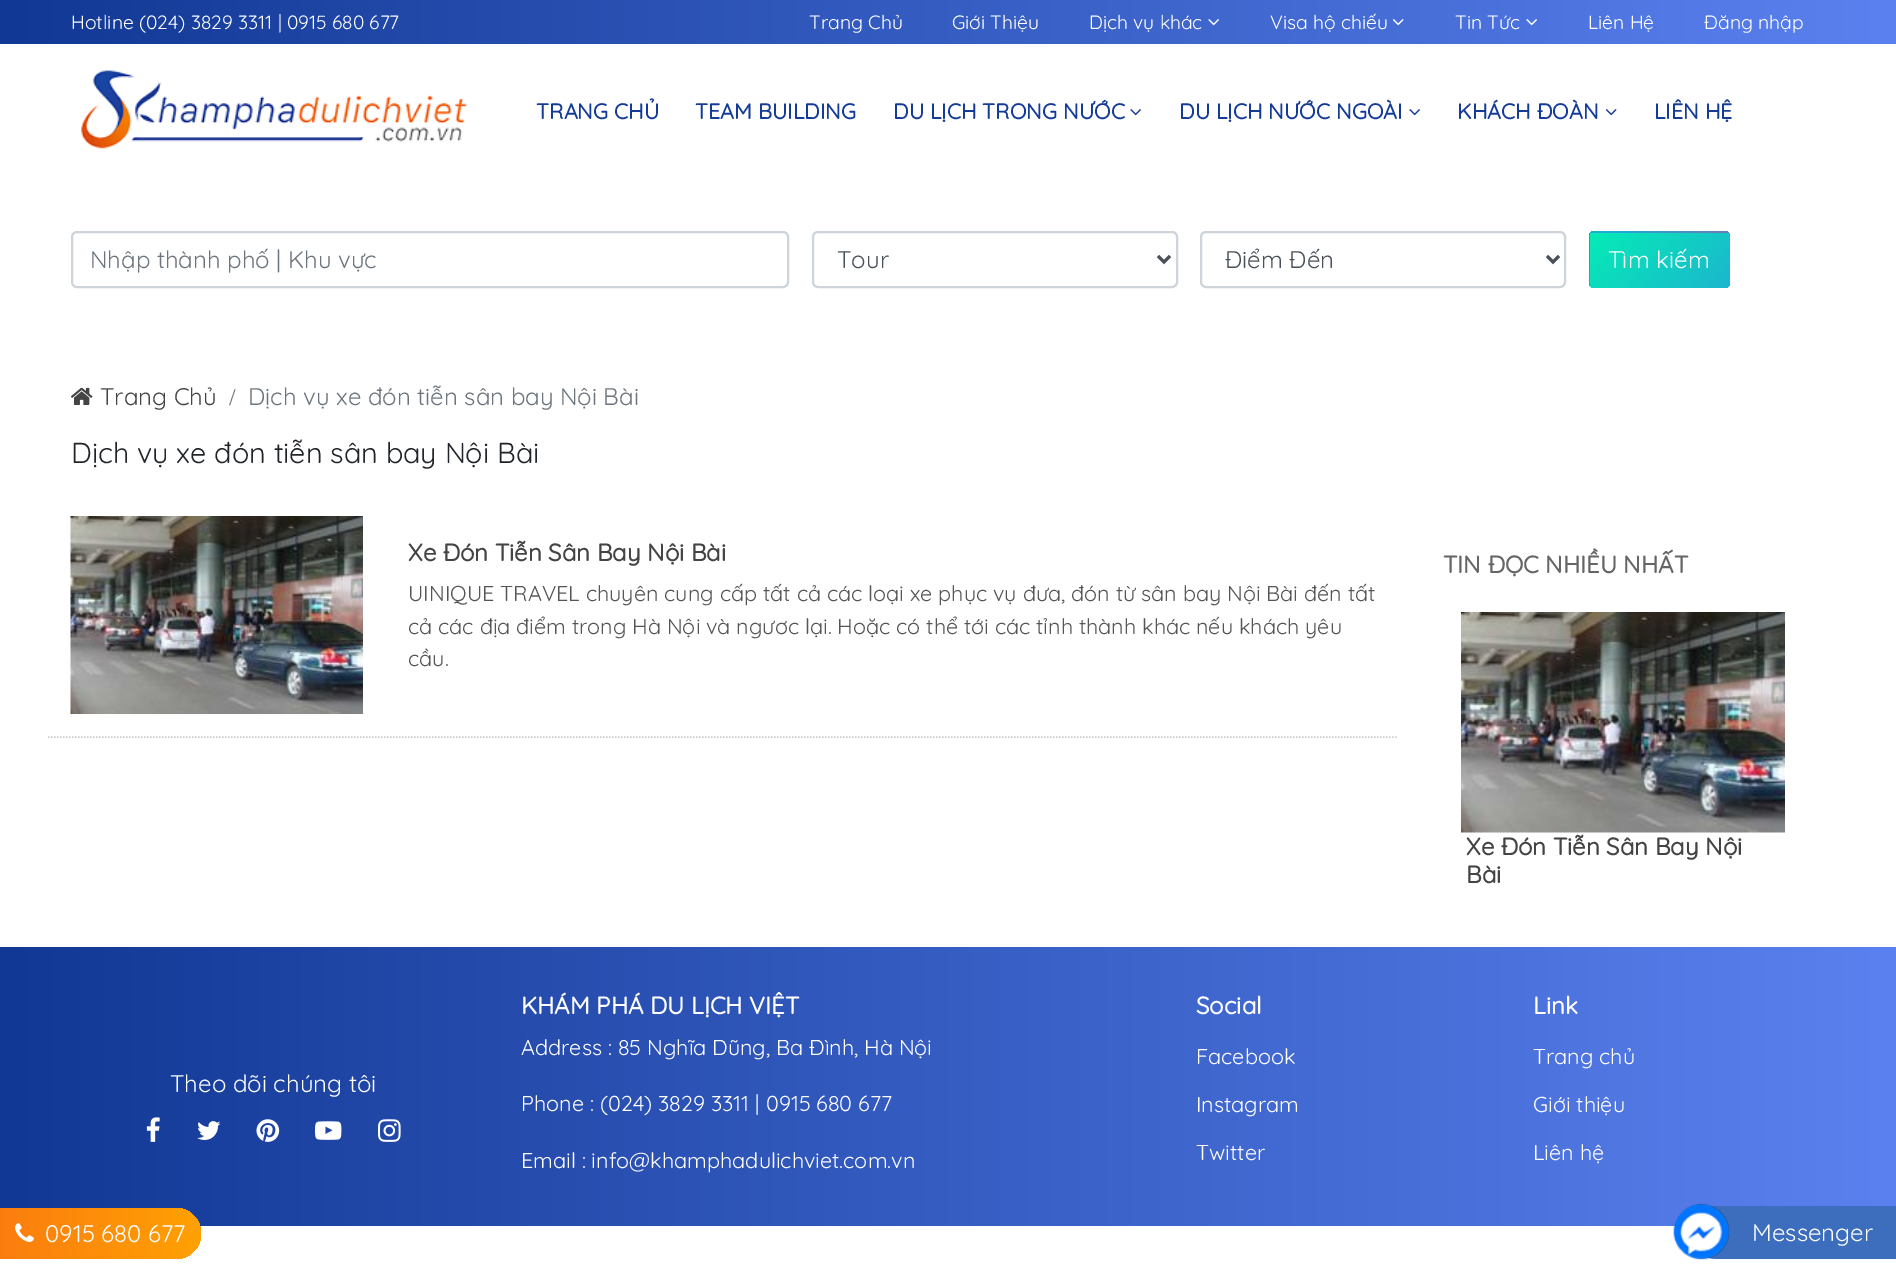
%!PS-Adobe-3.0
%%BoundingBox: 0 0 1896 1281
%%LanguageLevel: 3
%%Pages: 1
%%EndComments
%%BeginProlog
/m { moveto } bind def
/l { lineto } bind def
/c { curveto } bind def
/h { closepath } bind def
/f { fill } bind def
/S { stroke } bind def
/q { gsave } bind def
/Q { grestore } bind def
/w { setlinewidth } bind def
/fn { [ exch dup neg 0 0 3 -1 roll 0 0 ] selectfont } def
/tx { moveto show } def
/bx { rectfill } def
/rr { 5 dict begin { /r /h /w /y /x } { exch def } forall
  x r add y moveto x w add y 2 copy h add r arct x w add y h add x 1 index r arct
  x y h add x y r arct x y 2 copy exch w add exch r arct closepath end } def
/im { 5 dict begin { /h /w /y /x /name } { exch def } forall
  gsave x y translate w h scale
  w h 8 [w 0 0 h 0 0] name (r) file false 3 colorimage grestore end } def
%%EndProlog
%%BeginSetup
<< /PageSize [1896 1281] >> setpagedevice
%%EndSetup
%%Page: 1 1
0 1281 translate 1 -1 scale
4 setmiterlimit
1 setgray
0 0 1896 1281 bx
q 0 0 m 1896 0 l 1896 44 l 0 44 l h clip newpath
<< /ShadingType 2 /ColorSpace /DeviceRGB /Coords [1896 22 0 22] /Extend [true true] /Function << /FunctionType 2 /Domain [0 1] /C0 [0.353 0.506 0.937] /C1 [0.071 0.22 0.584] /N 1 >> >> shfill Q
/Quicksand-Light 19.25 fn
(Hotline \(024\) 3829 3311 | 0915 680 677) 71 29 tx
(Trang Chủ) 809 29 tx
(Giới Thiệu) 952 29 tx
(Dịch vụ khác) 1089 29 tx
(image0.raw) 1208 19 11 7 im
(Visa hộ chiếu) 1270 29 tx
(image1.raw) 1392 19 12 7 im
(Tin Tức) 1455 29 tx
(image2.raw) 1526 19 11 7 im
(Liên Hệ) 1588 29 tx
(Đăng nhập) 1704 29 tx
(image3.raw) 81 70 386 79 im
/Quicksand-Bold 21.6 fn
0.082 0.231 0.6 setrgbcolor
(TRANG CHỦ) 536 119 tx
(TEAM BUILDING) 695 119 tx
(DU LỊCH TRONG NƯỚC) 893 119 tx
(image4.raw) 1130 109 11 7 im
(DU LỊCH NƯỚC NGOÀI) 1179 119 tx
(image4.raw) 1409 109 11 7 im
(KHÁCH ĐOÀN) 1457 119 tx
(image5.raw) 1605 109 12 7 im
(LIÊN HỆ) 1654 119 tx
0.808 0.831 0.855 setrgbcolor
2 w
72 232 716 55 5 rr S
/Quicksand-Light 24 fn
0.424 0.459 0.49 setrgbcolor
(Nhập thành phố | Khu vực) 90 268 tx
0.808 0.831 0.855 setrgbcolor
813 232 364 55 5 rr S
0.286 0.314 0.341 setrgbcolor
3 w
1158 256 m 1164 262 l 1170 256 l S
(Tour) 837 268 tx
0.808 0.831 0.855 setrgbcolor
2 w
1201 232 364 55 5 rr S
0.286 0.314 0.341 setrgbcolor
3 w
1547 256 m 1553 262 l 1559 256 l S
(Điểm Đến) 1225 268 tx
q
1589 231 141 57 6 rr clip newpath
q 1590 231 m 1730 231 l 1730 233 l 1590 233 l h clip newpath
<< /ShadingType 2 /ColorSpace /DeviceRGB /Coords [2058 317 1674 -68] /Extend [true true] /Function << /FunctionType 3 /Domain [0 1] /Functions [<< /FunctionType 2 /Domain [0 1] /C0 [1 0.533 0] /C1 [0.906 0.235 0.494] /N 1 >> << /FunctionType 2 /Domain [0 1] /C0 [0.906 0.235 0.494] /C1 [0.137 0.651 0.835] /N 1 >> << /FunctionType 2 /Domain [0 1] /C0 [0.137 0.651 0.835] /C1 [0.02 0.925 0.714] /N 1 >>] /Bounds [0.33 0.67] /Encode [0 1 0 1 0 1] >> >> shfill Q
q 1589 233 m 1590 233 l 1590 288 l 1589 288 l h clip newpath
<< /ShadingType 2 /ColorSpace /DeviceRGB /Coords [1506 533 1122 148] /Extend [true true] /Function << /FunctionType 3 /Domain [0 1] /Functions [<< /FunctionType 2 /Domain [0 1] /C0 [1 0.533 0] /C1 [0.906 0.235 0.494] /N 1 >> << /FunctionType 2 /Domain [0 1] /C0 [0.906 0.235 0.494] /C1 [0.137 0.651 0.835] /N 1 >> << /FunctionType 2 /Domain [0 1] /C0 [0.137 0.651 0.835] /C1 [0.02 0.925 0.714] /N 1 >>] /Bounds [0.33 0.67] /Encode [0 1 0 1 0 1] >> >> shfill Q
q 1590 233 m 1730 233 l 1730 282 l 1730 285.5 1727.5 288 1724 288 c 1590 288 l h clip newpath
<< /ShadingType 2 /ColorSpace /DeviceRGB /Coords [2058 533 1674 148] /Extend [true true] /Function << /FunctionType 3 /Domain [0 1] /Functions [<< /FunctionType 2 /Domain [0 1] /C0 [1 0.533 0] /C1 [0.906 0.235 0.494] /N 1 >> << /FunctionType 2 /Domain [0 1] /C0 [0.906 0.235 0.494] /C1 [0.137 0.651 0.835] /N 1 >> << /FunctionType 2 /Domain [0 1] /C0 [0.137 0.651 0.835] /C1 [0.02 0.925 0.714] /N 1 >>] /Bounds [0.33 0.67] /Encode [0 1 0 1 0 1] >> >> shfill Q
Q
1 setgray
(Tìm kiếm) 1608 268 tx
(image6.raw) 70 387 23 18 im
0.267 setgray
(Trang Chủ) 100 405 tx
/LiberationSerif-Regular 24 fn
0.424 0.459 0.49 setrgbcolor
(/) 229 405 tx
/Quicksand-Light 24 fn
(Dịch vụ xe đón tiễn sân bay Nội Bài) 248 405 tx
/Quicksand-Light 28.75 fn
0.129 0.145 0.161 setrgbcolor
(Dịch vụ xe đón tiễn sân bay Nội Bài) 71 463 tx
0.8 setgray
1.5 w
[1.5 1.5] 0 setdash
48 737 m 1398 737 l S
(image7.raw) 70 516 293 198 im
/Quicksand-Bold 24 fn
0.267 setgray
(Xe Đón Tiễn Sân Bay Nội Bài) 408 561 tx
/Quicksand-Light 21.6 fn
0.333 setgray
(UINIQUE TRAVEL chuyên cung cấp tất cả các loại xe phục vụ đưa, đón từ sân bay Nội Bài đến tất) 408 601 tx
(cả các địa điểm trong Hà Nội và ngươc lại. Hoặc có thể tới các tỉnh thành khác nếu khách yêu) 408 634 tx
(cầu.) 408 666 tx
/Quicksand-Bold 24 fn
0.4 setgray
(TIN ĐỌC NHIỀU NHẤT) 1443 573 tx
(image8.raw) 1461 612 324 221 im
0.267 setgray
(Xe Đón Tiễn Sân Bay Nội) 1466 855 tx
(Bài) 1466 883 tx
q 0 947 m 1896 947 l 1896 1226 l 0 1226 l h clip newpath
<< /ShadingType 2 /ColorSpace /DeviceRGB /Coords [1896 1086 0 1086] /Extend [true true] /Function << /FunctionType 2 /Domain [0 1] /C0 [0.353 0.506 0.937] /C1 [0.071 0.22 0.584] /N 1 >> >> shfill Q
/Quicksand-Light 24 fn
1 setgray
(Theo dõi chúng tôi) 170 1092 tx
(image9.raw) 146 1117 14 25 im
(image10.raw) 197 1121 24 19 im
(image11.raw) 256 1119 24 23 im
(image12.raw) 315 1121 27 19 im
(image13.raw) 378 1119 23 23 im
/Quicksand-Bold 24 fn
(KHÁM PHÁ DU LỊCH VIỆT) 521 1014 tx
/Quicksand-Light 21.6 fn
(Address : 85 Nghĩa Dũng, Ba Đình, Hà Nội) 521 1055 tx
(Phone : \(024\) 3829 3311 | 0915 680 677) 521 1111 tx
(Email : info@khamphadulichviet.com.vn) 521 1168 tx
/Quicksand-Bold 24 fn
(Social) 1196 1014 tx
/Quicksand-Light 21.6 fn
(Facebook) 1196 1064 tx
(Instagram) 1196 1112 tx
(Twitter) 1196 1160 tx
/Quicksand-Bold 24 fn
(Link) 1533 1014 tx
/Quicksand-Light 21.6 fn
(Trang chủ) 1533 1064 tx
(Giới thiệu) 1533 1112 tx
(Liên hệ) 1533 1160 tx
q 0 1208 m 175.5 1208 l 189.5 1208 201 1219.5 201 1233.5 c 201 1247.5 189.5 1259 175.5 1259 c 0 1259 l h clip newpath
<< /ShadingType 2 /ColorSpace /DeviceRGB /Coords [201 1233 0 1233] /Extend [true true] /Function << /FunctionType 2 /Domain [0 1] /C0 [1 0.631 0.012] /C1 [0.984 0.49 0.059] /N 1 >> >> shfill Q
(image14.raw) 15 1223 19 19 im
/Quicksand-Light 24 fn
(0915 680 677) 45 1242 tx
0.235 0.431 0.741 setrgbcolor
1715 1206 m 1896 1206 l 1896 1259 l 1715 1259 l 1702.5 1259 1692 1248.5 1692 1236 c 1692 1229 l 1692 1216.5 1702.5 1206 1715 1206 c h f
(image15.raw) 1673 1203 56 57 im
1 setgray
(Messenger) 1752 1241 tx
showpage
%%EOF
